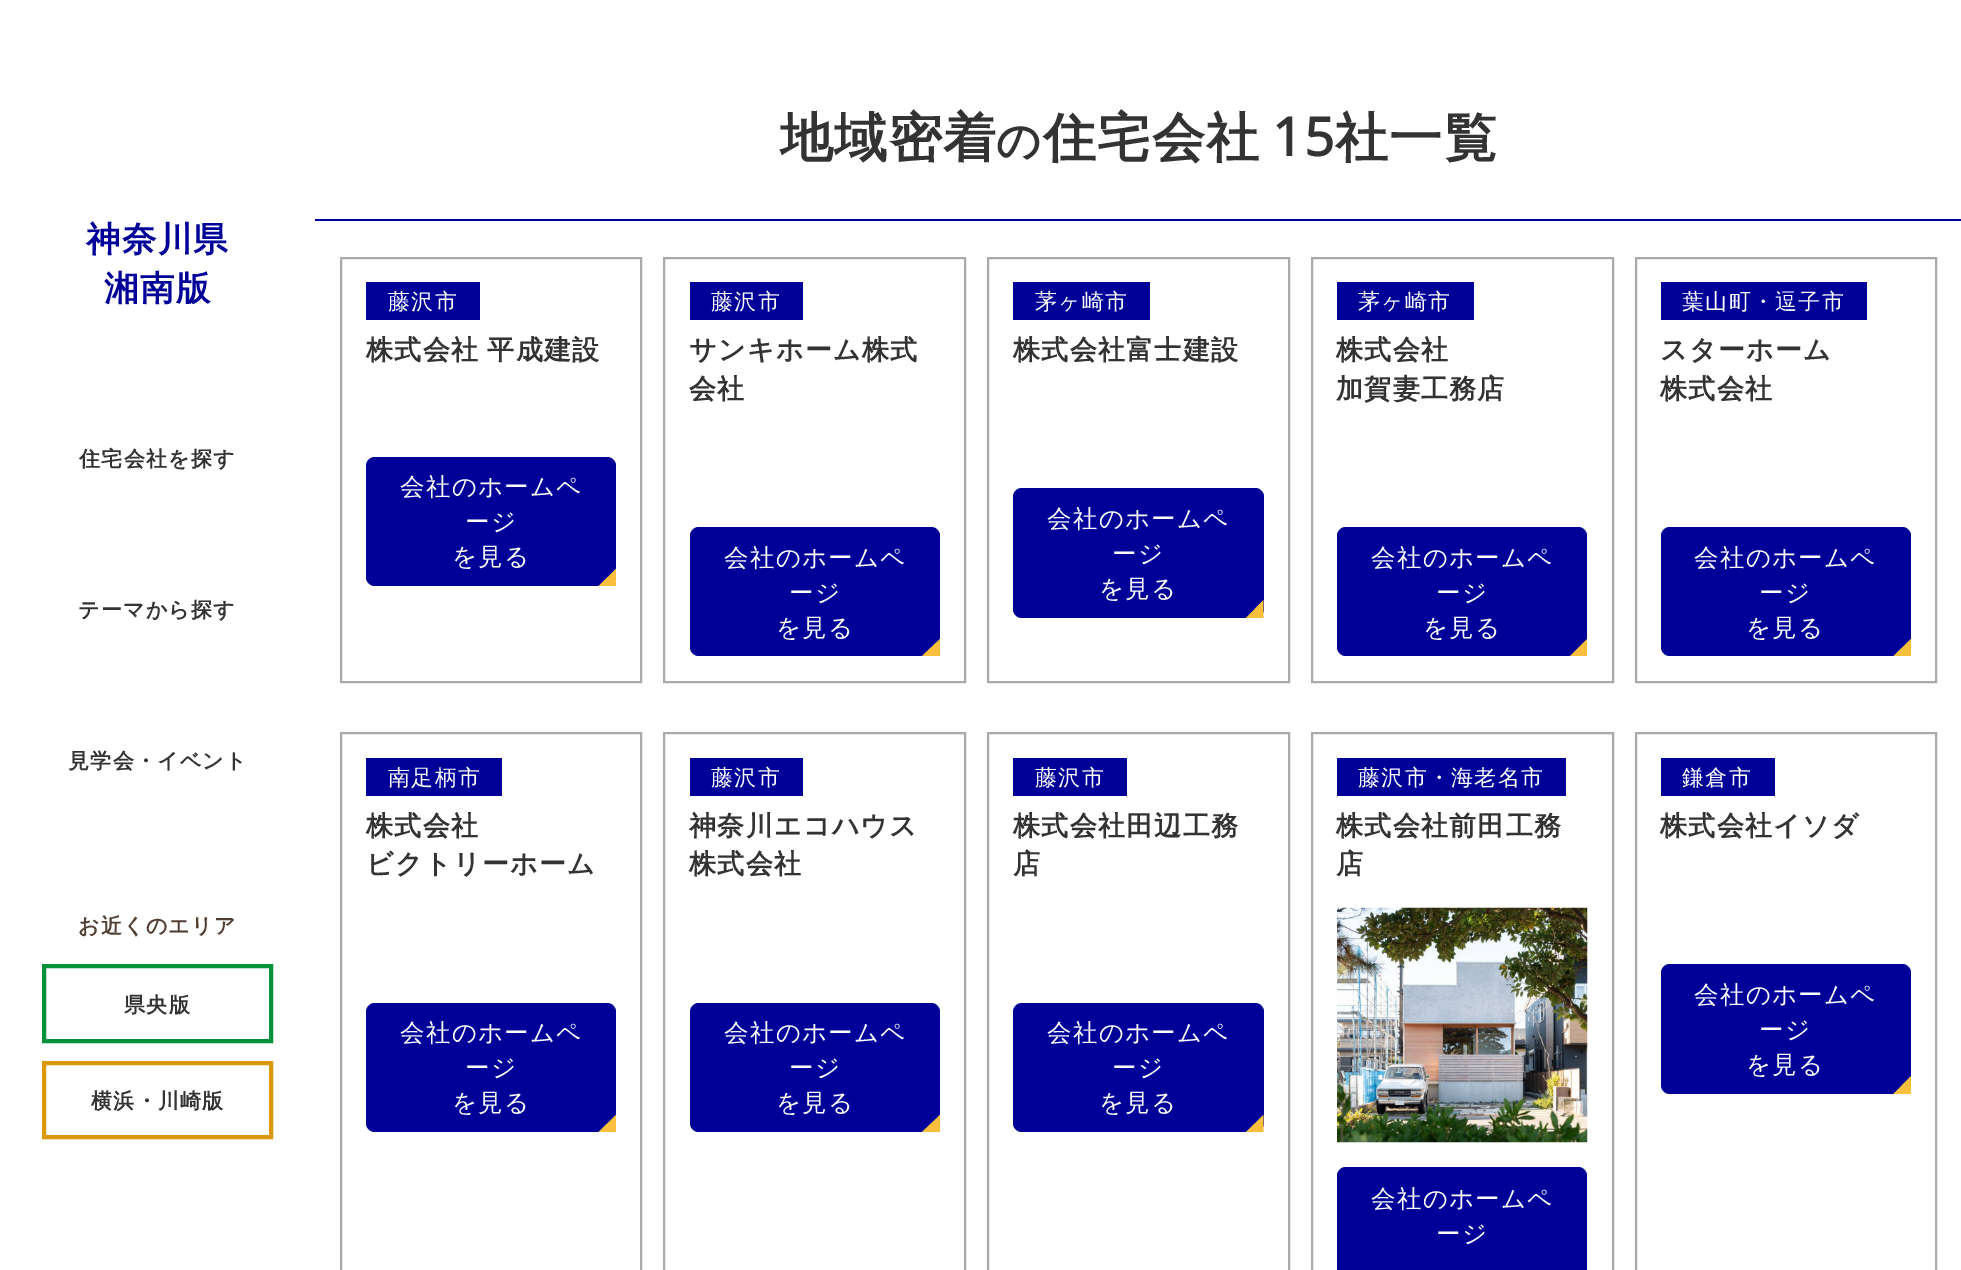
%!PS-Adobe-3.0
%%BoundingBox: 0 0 1961 1270
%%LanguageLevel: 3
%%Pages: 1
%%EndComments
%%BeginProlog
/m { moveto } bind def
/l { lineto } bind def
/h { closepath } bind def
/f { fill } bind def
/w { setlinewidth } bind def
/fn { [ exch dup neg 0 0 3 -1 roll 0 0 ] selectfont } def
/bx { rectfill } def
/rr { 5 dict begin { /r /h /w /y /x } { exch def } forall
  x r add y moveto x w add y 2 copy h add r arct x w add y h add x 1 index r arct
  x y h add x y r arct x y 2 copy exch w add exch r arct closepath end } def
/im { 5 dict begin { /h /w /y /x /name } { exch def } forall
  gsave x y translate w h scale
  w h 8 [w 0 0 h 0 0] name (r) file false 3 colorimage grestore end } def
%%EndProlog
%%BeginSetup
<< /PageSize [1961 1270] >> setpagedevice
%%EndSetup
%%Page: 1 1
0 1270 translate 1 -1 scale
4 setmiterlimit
1 setgray
0 0 1961 1270 bx
/WenQuanYiZenHei-Bold 34.5 fn
0 0 0.6 setrgbcolor
86 251 m 1.25 0 (神奈川県) ashow
104 300 m 1.25 0 (湘南版) ashow
/WenQuanYiZenHei-Bold 21 fn
0.2 setgray
79 466 m 1.25 0 (住宅会社を探す) ashow
78 617 m 1.25 0 (テーマから探す) ashow
68 768 m 1.25 0 (見学会・イベント) ashow
0.318 0.243 0.2 setrgbcolor
78 933 m 1.25 0 (お近くのエリア) ashow
0.027 0.569 0.227 setrgbcolor
4 w
44 966 227 75 rectstroke
0.2 setgray
124 1012 m 1.25 0 (県央版) ashow
0.859 0.596 0.035 setrgbcolor
44 1063 227 74 rectstroke
0.2 setgray
91 1108 m 1.25 0 (横浜・川崎版) ashow
0 0 0.6 setrgbcolor
315 219 1646 2 bx
/WenQuanYiZenHei-Bold 53 fn
0.2 setgray
780 156 m 1.25 0 (地域密着) ashow
/WenQuanYiZenHei-Bold 44 fn
996 156 m 1.25 0 (の) ashow
/WenQuanYiZenHei-Bold 53 fn
1043 156 m 1.25 0 (住宅会社) ashow
/OpenSans-Bold 53 fn
1272 156 m 1.25 0 (15) ashow
/WenQuanYiZenHei-Bold 53 fn
1335 156 m 1.25 0 (社一覧) ashow
0.667 setgray
2 w
341 258 300 424 rectstroke
0 0 0.6 setrgbcolor
366 282 114 38 bx
/WenQuanYiZenHei-Medium 22 fn
1 setgray
388 309 m 1.25 0 (藤沢市) ashow
/WenQuanYiZenHei-Bold 27 fn
0.2 setgray
366 359 m -1 0 32 1.25 0 (株式会社 平成建設) awidthshow
0 0 0.6 setrgbcolor
366 457 250 129 9 rr f
/WenQuanYiZenHei-Medium 24.5 fn
1 setgray
400 495 m 1.25 0 (会社のホームペ) ashow
465 530 m 1.25 0 (ージ) ashow
452 565 m 1.25 0 (を見る) ashow
0.98 0.753 0.239 setrgbcolor
616 586 m 598.5 586 l 616 569 l h f
0.667 setgray
664 258 301 424 rectstroke
0 0 0.6 setrgbcolor
690 282 113 38 bx
/WenQuanYiZenHei-Medium 22 fn
1 setgray
711 309 m 1.25 0 (藤沢市) ashow
/WenQuanYiZenHei-Bold 27 fn
0.2 setgray
689 359 m 1.25 0 (サンキホーム株式) ashow
689 398 m 1.25 0 (会社) ashow
0 0 0.6 setrgbcolor
690 527 250 129 9 rr f
/WenQuanYiZenHei-Medium 24.5 fn
1 setgray
724 566 m 1.25 0 (会社のホームペ) ashow
789 601 m 1.25 0 (ージ) ashow
776 636 m 1.25 0 (を見る) ashow
0.98 0.753 0.239 setrgbcolor
940 656 m 922 656 l 940 639 l h f
0.667 setgray
988 258 301 424 rectstroke
0 0 0.6 setrgbcolor
1013 282 137 38 bx
/WenQuanYiZenHei-Medium 22 fn
1 setgray
1035 309 m 1.25 0 (茅ヶ崎市) ashow
/WenQuanYiZenHei-Bold 27 fn
0.2 setgray
1013 359 m 1.25 0 (株式会社富士建設) ashow
0 0 0.6 setrgbcolor
1013 488 251 130 9 rr f
/WenQuanYiZenHei-Medium 24.5 fn
1 setgray
1047 527 m 1.25 0 (会社のホームペ) ashow
1112 562 m 1.25 0 (ージ) ashow
1099 597 m 1.25 0 (を見る) ashow
0.98 0.753 0.239 setrgbcolor
1263.5 618 m 1246 618 l 1263.5 600 l h f
0.667 setgray
1312 258 301 424 rectstroke
0 0 0.6 setrgbcolor
1337 282 137 38 bx
/WenQuanYiZenHei-Medium 22 fn
1 setgray
1358 309 m 1.25 0 (茅ヶ崎市) ashow
/WenQuanYiZenHei-Bold 27 fn
0.2 setgray
1336 359 m 1.25 0 (株式会社) ashow
1336 398 m 1.25 0 (加賀妻工務店) ashow
0 0 0.6 setrgbcolor
1337 527 250 129 9 rr f
/WenQuanYiZenHei-Medium 24.5 fn
1 setgray
1371 566 m 1.25 0 (会社のホームペ) ashow
1436 601 m 1.25 0 (ージ) ashow
1423 636 m 1.25 0 (を見る) ashow
0.98 0.753 0.239 setrgbcolor
1587 656 m 1570 656 l 1587 639 l h f
0.667 setgray
1636 258 300 424 rectstroke
0 0 0.6 setrgbcolor
1661 282 206 38 bx
/WenQuanYiZenHei-Medium 22 fn
1 setgray
1682 309 m 1.25 0 (葉山町・逗子市) ashow
/WenQuanYiZenHei-Bold 27 fn
0.2 setgray
1660 359 m 1.25 0 (スターホーム) ashow
1660 398 m 1.25 0 (株式会社) ashow
0 0 0.6 setrgbcolor
1661 527 250 129 9 rr f
/WenQuanYiZenHei-Medium 24.5 fn
1 setgray
1694 566 m 1.25 0 (会社のホームペ) ashow
1759 601 m 1.25 0 (ージ) ashow
1746 636 m 1.25 0 (を見る) ashow
0.98 0.753 0.239 setrgbcolor
1911 656 m 1893.5 656 l 1911 639 l h f
0.667 setgray
341 733 300 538 rectstroke
0 0 0.6 setrgbcolor
366 758 136 38 bx
/WenQuanYiZenHei-Medium 22 fn
1 setgray
388 785 m 1.25 0 (南足柄市) ashow
/WenQuanYiZenHei-Bold 27 fn
0.2 setgray
366 835 m 1.25 0 (株式会社) ashow
366 873 m 1.25 0 (ビクトリーホーム) ashow
0 0 0.6 setrgbcolor
366 1003 250 129 9 rr f
/WenQuanYiZenHei-Medium 24.5 fn
1 setgray
400 1041 m 1.25 0 (会社のホームペ) ashow
465 1076 m 1.25 0 (ージ) ashow
452 1111 m 1.25 0 (を見る) ashow
0.98 0.753 0.239 setrgbcolor
616 1132 m 598.5 1132 l 616 1115 l h f
0.667 setgray
664 733 301 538 rectstroke
0 0 0.6 setrgbcolor
690 758 113 38 bx
/WenQuanYiZenHei-Medium 22 fn
1 setgray
711 785 m 1.25 0 (藤沢市) ashow
/WenQuanYiZenHei-Bold 27 fn
0.2 setgray
689 835 m 1.25 0 (神奈川エコハウス) ashow
689 873 m 1.25 0 (株式会社) ashow
0 0 0.6 setrgbcolor
690 1003 250 129 9 rr f
/WenQuanYiZenHei-Medium 24.5 fn
1 setgray
724 1041 m 1.25 0 (会社のホームペ) ashow
789 1076 m 1.25 0 (ージ) ashow
776 1111 m 1.25 0 (を見る) ashow
0.98 0.753 0.239 setrgbcolor
940 1132 m 922 1132 l 940 1115 l h f
0.667 setgray
988 733 301 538 rectstroke
0 0 0.6 setrgbcolor
1013 758 114 38 bx
/WenQuanYiZenHei-Medium 22 fn
1 setgray
1035 785 m 1.25 0 (藤沢市) ashow
/WenQuanYiZenHei-Bold 27 fn
0.2 setgray
1013 835 m 1.25 0 (株式会社田辺工務) ashow
1013 873 m 1.25 0 (店) ashow
0 0 0.6 setrgbcolor
1013 1003 251 129 9 rr f
/WenQuanYiZenHei-Medium 24.5 fn
1 setgray
1047 1041 m 1.25 0 (会社のホームペ) ashow
1112 1076 m 1.25 0 (ージ) ashow
1099 1111 m 1.25 0 (を見る) ashow
0.98 0.753 0.239 setrgbcolor
1263.5 1132 m 1246 1132 l 1263.5 1115 l h f
0.667 setgray
1312 733 301 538 rectstroke
0 0 0.6 setrgbcolor
1337 758 229 38 bx
/WenQuanYiZenHei-Medium 22 fn
1 setgray
1358 785 m 1.25 0 (藤沢市・海老名市) ashow
/WenQuanYiZenHei-Bold 27 fn
0.2 setgray
1336 835 m 1.25 0 (株式会社前田工務) ashow
1336 873 m 1.25 0 (店) ashow
(image0.raw) 1337 907 251 236 im
0 0 0.6 setrgbcolor
1337 1167 250 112 9 rr f
/WenQuanYiZenHei-Medium 24.5 fn
1 setgray
1371 1207 m 1.25 0 (会社のホームペ) ashow
1436 1242 m 1.25 0 (ージ) ashow
0.667 setgray
1636 733 300 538 rectstroke
0 0 0.6 setrgbcolor
1661 758 114 38 bx
/WenQuanYiZenHei-Medium 22 fn
1 setgray
1682 785 m 1.25 0 (鎌倉市) ashow
/WenQuanYiZenHei-Bold 27 fn
0.2 setgray
1660 835 m 1.25 0 (株式会社イソダ) ashow
0 0 0.6 setrgbcolor
1661 964 250 130 9 rr f
/WenQuanYiZenHei-Medium 24.5 fn
1 setgray
1694 1003 m 1.25 0 (会社のホームペ) ashow
1759 1038 m 1.25 0 (ージ) ashow
1746 1073 m 1.25 0 (を見る) ashow
0.98 0.753 0.239 setrgbcolor
1911 1094 m 1893.5 1094 l 1911 1076 l h f
showpage
%%EOF
